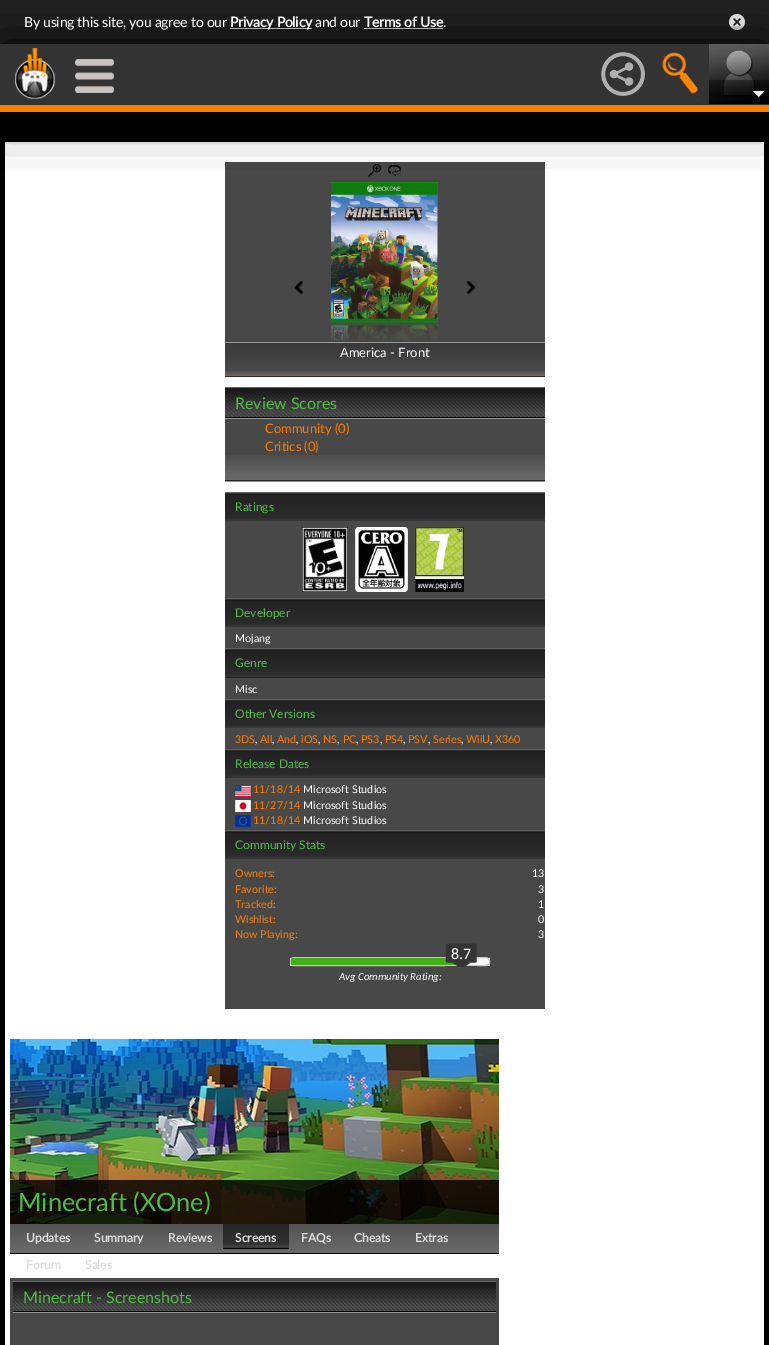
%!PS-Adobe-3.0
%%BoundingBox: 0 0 769 1345
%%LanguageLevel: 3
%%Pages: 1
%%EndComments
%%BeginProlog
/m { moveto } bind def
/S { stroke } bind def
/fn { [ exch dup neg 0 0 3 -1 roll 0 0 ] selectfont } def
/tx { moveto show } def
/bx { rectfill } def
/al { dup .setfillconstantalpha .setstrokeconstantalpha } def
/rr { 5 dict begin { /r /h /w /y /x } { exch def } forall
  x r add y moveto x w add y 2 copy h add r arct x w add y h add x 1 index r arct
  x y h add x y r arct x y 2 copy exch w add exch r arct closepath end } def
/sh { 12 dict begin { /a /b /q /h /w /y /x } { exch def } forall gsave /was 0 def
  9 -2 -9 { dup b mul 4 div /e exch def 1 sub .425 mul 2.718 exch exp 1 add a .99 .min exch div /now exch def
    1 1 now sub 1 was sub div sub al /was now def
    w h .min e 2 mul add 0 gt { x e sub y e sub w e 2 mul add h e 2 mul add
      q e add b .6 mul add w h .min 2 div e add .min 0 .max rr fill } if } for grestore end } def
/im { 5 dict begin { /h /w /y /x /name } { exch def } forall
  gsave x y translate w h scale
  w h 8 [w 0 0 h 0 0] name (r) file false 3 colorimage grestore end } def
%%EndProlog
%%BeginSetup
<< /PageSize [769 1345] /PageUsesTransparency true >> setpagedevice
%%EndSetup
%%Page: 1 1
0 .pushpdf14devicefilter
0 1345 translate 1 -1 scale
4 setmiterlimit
0 setgray
0 0 769 1345 bx
0.133 setgray
0 0 769 44 bx
1 setgray
230 28 82 1 bx
364 28 79 1 bx
(image6.raw) 729 14 16 16 im
5 142 759 1203 bx
0.282 setgray
225 162 320 180 bx
(image10.raw) 368 164 13 13 im
(image11.raw) 388 165 13 11 im
(image12.raw) 331 182 107 140 im
0 setgray
0 45 769 68 0 25 1 sh
0.2 setgray
0 44 769 61 bx
(image0.raw) 15 48 40 51 im
(image1.raw) 75 59 39 34 im
(image2.raw) 601 52 44 44 im
(image3.raw) 662 52 38 48 im
(image4.raw) 709 44 60 60 im
(image5.raw) 709 80 60 18 im
0.976 0.482 0 setrgbcolor
0 105 769 7 bx
/Lato-Regular 14 fn
1 setgray
24 27 m -0.25 0 (By using this site, you agree to our) ashow
/Lato-Bold 14 fn
230 27 m -0.25 0 (Privacy Policy) ashow
/Lato-Regular 14 fn
315 27 m -0.25 0 (and our) ashow
/Lato-Bold 14 fn
364 27 m -0.25 0 (Terms of Use) ashow
/Lato-Regular 14 fn
443 27 m -0.25 0 (.) ashow
(image7.raw) 225 342 320 35 im
(image8.raw) 294 281 10 13 im
(image9.raw) 466 281 10 13 im
(image13.raw) 331 322 107 20 im
/Lato-Regular 13 fn
(America - Front) 340 357 tx
0.282 setgray
225 419 320 36 bx
(image14.raw) 225 455 320 11 im
(image15.raw) 225 387 320 31 im
0.6 setgray
225 418 320 1 bx
/Lato-Regular 16 fn
0.318 0.729 0.278 setrgbcolor
(Review Scores) 235 409 tx
/Lato-Regular 13 fn
0.98 0.49 0.004 setrgbcolor
(Community \(0\)) 265 433 tx
(Critics \(0\)) 265 451 tx
(image16.raw) 225 466 320 15 im
0.6 setgray
225 481 320 1 bx
0.282 setgray
225 521 320 488 bx
(image17.raw) 225 492 320 29 im
/Lato-Regular 12 fn
0.318 0.729 0.278 setrgbcolor
(Ratings) 235 511 tx
(image18.raw) 302 527 46 65 im
(image19.raw) 355 527 53 65 im
(image20.raw) 415 527 49 65 im
(image17.raw) 225 598 320 29 im
(Developer) 235 617 tx
/Lato-Regular 10.75 fn
1 setgray
(Mojang) 235 642 tx
(image21.raw) 225 648 320 30 im
/Lato-Regular 12 fn
0.318 0.729 0.278 setrgbcolor
(Genre) 235 667 tx
/Lato-Regular 10.75 fn
1 setgray
(Misc) 235 693 tx
(image17.raw) 225 699 320 29 im
/Lato-Regular 12 fn
0.318 0.729 0.278 setrgbcolor
(Other Versions) 235 718 tx
/Lato-Regular 10.75 fn
0.98 0.49 0.004 setrgbcolor
(3DS) 235 743 tx
1 setgray
(,) 255 743 tx
0.98 0.49 0.004 setrgbcolor
(All) 260 743 tx
1 setgray
(,) 272 743 tx
0.98 0.49 0.004 setrgbcolor
(And) 277 743 tx
1 setgray
(,) 296 743 tx
0.98 0.49 0.004 setrgbcolor
(iOS) 301 743 tx
1 setgray
(,) 318 743 tx
0.98 0.49 0.004 setrgbcolor
(NS) 323 743 tx
1 setgray
(,) 337 743 tx
0.98 0.49 0.004 setrgbcolor
(PC) 343 743 tx
1 setgray
(,) 356 743 tx
0.98 0.49 0.004 setrgbcolor
(PS3) 361 743 tx
1 setgray
(,) 380 743 tx
0.98 0.49 0.004 setrgbcolor
(PS4) 385 743 tx
1 setgray
(,) 403 743 tx
0.98 0.49 0.004 setrgbcolor
(PSV) 408 743 tx
1 setgray
(,) 428 743 tx
0.98 0.49 0.004 setrgbcolor
(Series) 433 743 tx
1 setgray
(,) 461 743 tx
0.98 0.49 0.004 setrgbcolor
(WiiU) 466 743 tx
1 setgray
(,) 490 743 tx
0.98 0.49 0.004 setrgbcolor
(X360) 495 743 tx
(image17.raw) 225 749 320 29 im
/Lato-Regular 12 fn
0.318 0.729 0.278 setrgbcolor
(Release Dates) 235 768 tx
(image22.raw) 235 785 16 12 im
/Lato-Regular 10.75 fn
0.98 0.49 0.004 setrgbcolor
(11/18/14) 253 793 tx
1 setgray
(Microsoft Studios) 303 793 tx
(image23.raw) 235 800 16 12 im
0.98 0.49 0.004 setrgbcolor
(11/27/14) 253 809 tx
1 setgray
(Microsoft Studios) 303 809 tx
(image24.raw) 235 815 16 12 im
0.98 0.49 0.004 setrgbcolor
(11/18/14) 253 824 tx
1 setgray
(Microsoft Studios) 303 824 tx
(image17.raw) 225 830 320 29 im
/Lato-Regular 12 fn
0.318 0.729 0.278 setrgbcolor
(Community Stats) 235 849 tx
/Lato-Regular 10.75 fn
0.98 0.49 0.004 setrgbcolor
(Owners:) 235 877 tx
1 setgray
(13) 532 877 tx
0.98 0.49 0.004 setrgbcolor
(Favorite:) 235 893 tx
1 setgray
(3) 538 893 tx
0.98 0.49 0.004 setrgbcolor
(Tracked:) 235 908 tx
1 setgray
(1) 538 908 tx
0.98 0.49 0.004 setrgbcolor
(Wishlist:) 235 923 tx
1 setgray
(0) 538 923 tx
0.98 0.49 0.004 setrgbcolor
(Now Playing:) 235 938 tx
1 setgray
(3) 538 938 tx
0.973 setgray
290 958 200 8 bx
0.773 setgray
290.5 957.5 199 8 3.5 rr S
0.271 0.682 0.094 setrgbcolor
291 958 165 7 bx
(image25.raw) 445 943 32 24 im
/Carlito-Regular 16 fn
1 setgray
(8.7) 451 959 tx
/Carlito-Italic 10.75 fn
(Avg Community Rating:) 339 980 tx
(image26.raw) 10 1224 489 30 im
(image27.raw) 10 1039 489 185 im
0.8 al
0 setgray
10 1180 489 44 bx
/Lato-Regular 25.25 fn
1 al
0.318 0.729 0.278 setrgbcolor
(Minecraft \(XOne\)) 18 1211 tx
/Lato-Bold 12 fn
0.867 setgray
(Updates) 26 1242 tx
(Summary) 94 1242 tx
(Reviews) 168 1242 tx
(image28.raw) 223 1224 66 25 im
(Screens) 235 1242 tx
(FAQs) 301 1242 tx
(Cheats) 354 1242 tx
(Extras) 415 1242 tx
(Forum) 26 1269 tx
(Sales) 85 1269 tx
0.282 setgray
10 1278 489 67 bx
(image29.raw) 13 1281 483 31 im
0.6 setgray
13 1312 483 1 bx
/Lato-Regular 16 fn
0.318 0.729 0.278 setrgbcolor
(Minecraft - Screenshots) 23 1303 tx
.poppdf14devicefilter showpage
%%EOF
